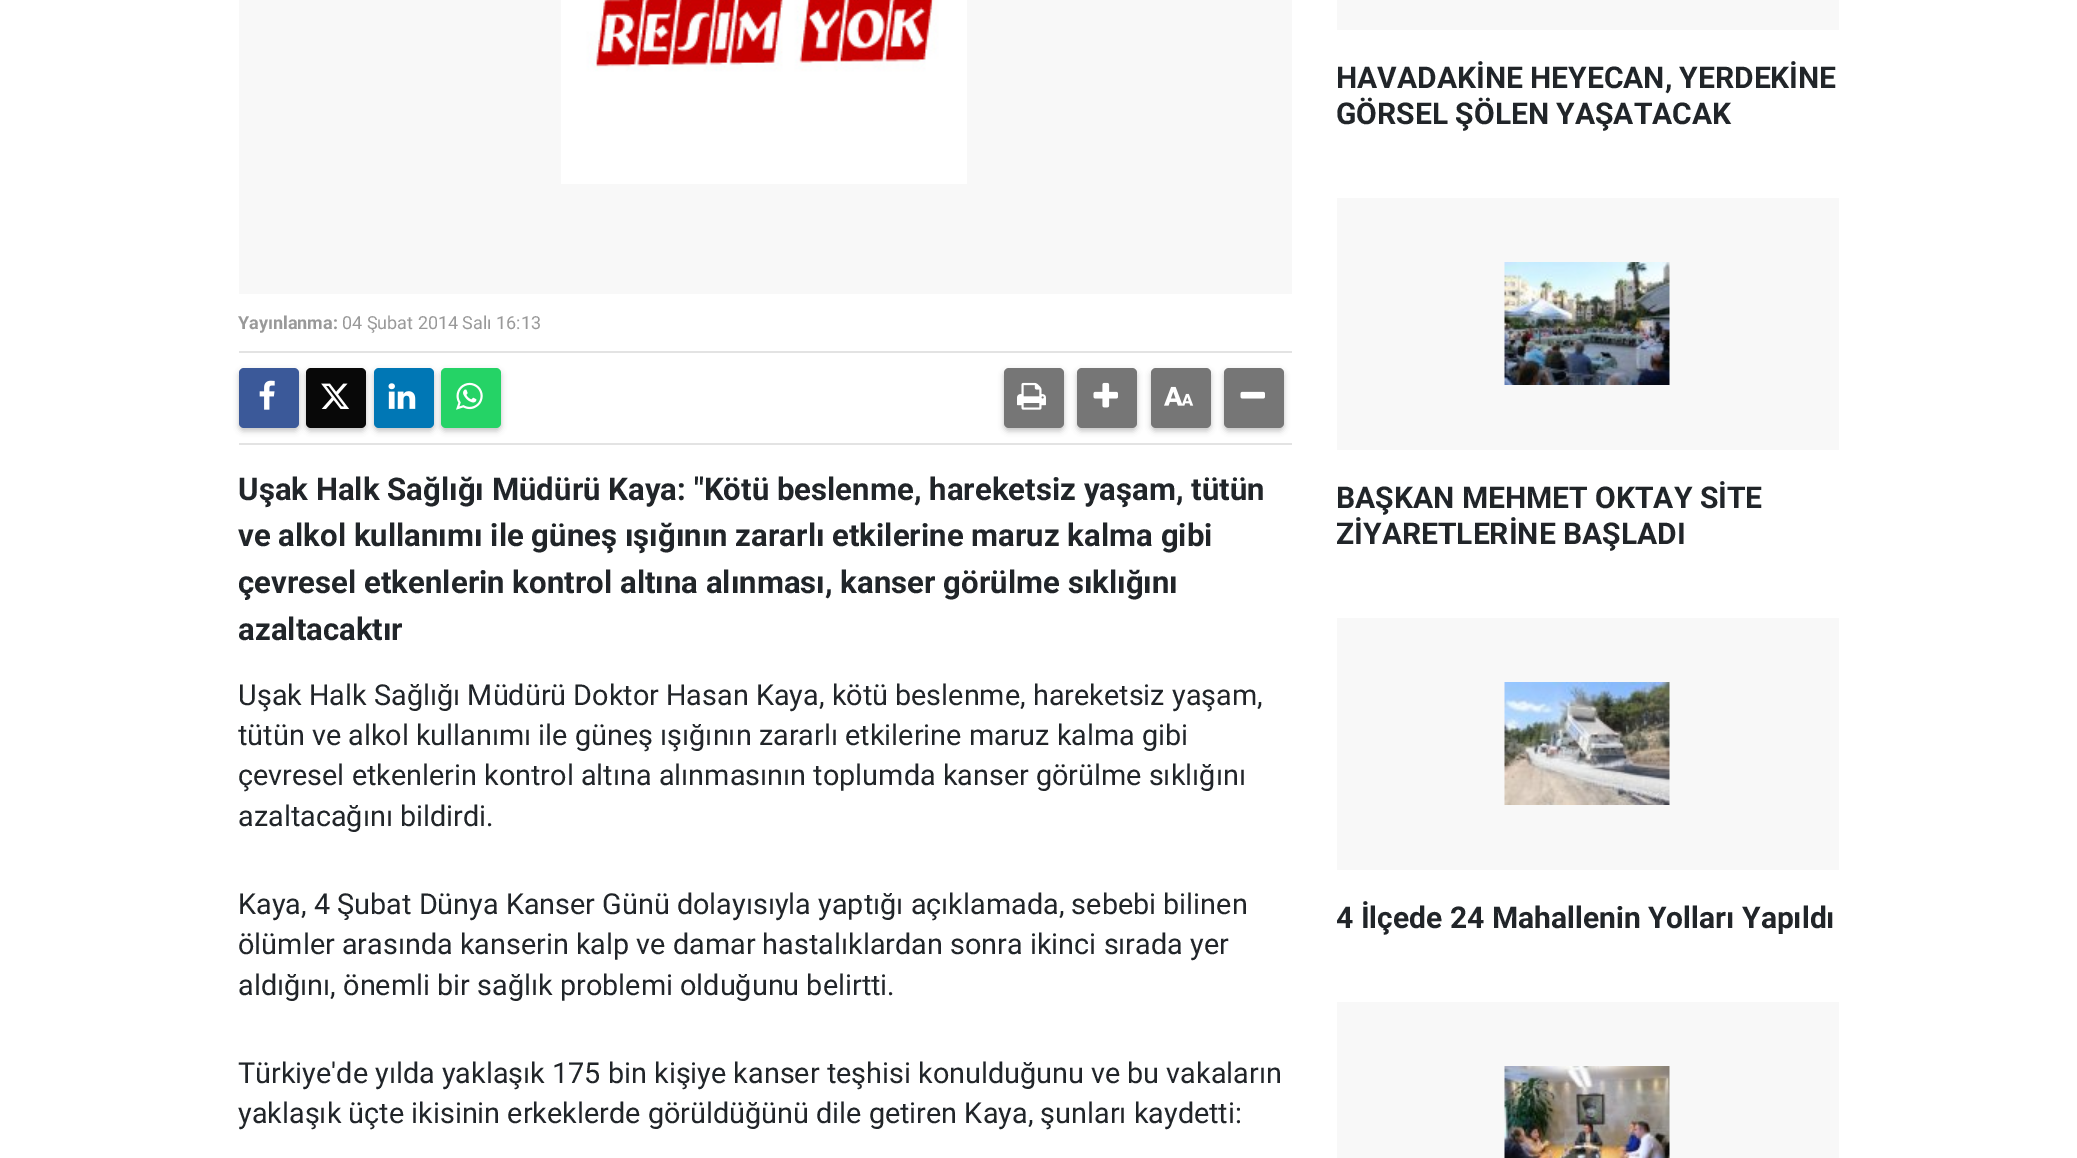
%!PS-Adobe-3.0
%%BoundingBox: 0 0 2077 1158
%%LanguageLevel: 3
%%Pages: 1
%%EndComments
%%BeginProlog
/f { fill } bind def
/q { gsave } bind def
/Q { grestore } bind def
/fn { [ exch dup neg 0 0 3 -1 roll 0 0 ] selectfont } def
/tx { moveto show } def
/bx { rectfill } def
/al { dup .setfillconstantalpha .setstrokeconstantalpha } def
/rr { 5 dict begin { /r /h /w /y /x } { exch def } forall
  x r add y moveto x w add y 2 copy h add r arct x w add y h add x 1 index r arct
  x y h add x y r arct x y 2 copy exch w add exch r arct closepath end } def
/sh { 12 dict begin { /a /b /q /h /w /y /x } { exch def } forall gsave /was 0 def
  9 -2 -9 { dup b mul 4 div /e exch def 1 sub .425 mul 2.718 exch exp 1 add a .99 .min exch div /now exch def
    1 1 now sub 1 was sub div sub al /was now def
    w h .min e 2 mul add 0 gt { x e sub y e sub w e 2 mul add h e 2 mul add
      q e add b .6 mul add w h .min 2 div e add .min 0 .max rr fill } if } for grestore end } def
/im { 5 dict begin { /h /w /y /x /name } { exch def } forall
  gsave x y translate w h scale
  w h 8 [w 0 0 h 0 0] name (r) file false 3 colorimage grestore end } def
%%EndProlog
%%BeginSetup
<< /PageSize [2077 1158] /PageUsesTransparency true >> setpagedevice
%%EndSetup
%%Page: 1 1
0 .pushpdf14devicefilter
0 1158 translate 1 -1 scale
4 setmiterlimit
1 setgray
0 0 2077 1158 bx
0.973 setgray
239 0 1053 294 bx
(image0.raw) 561 0 406 184 im
/Roboto-Bold 18 fn
0.6 setgray
(Yayınlanma:) 238 329 tx
/Roboto-Regular 18 fn
(04 Şubat 2014 Salı 16:13) 342 329 tx
0.89 setgray
239 351 1053 2 bx
239 443 1053 2 bx
0.196 setgray
239 371 60 60 5 3 0.3 sh
0.231 0.349 0.6 setrgbcolor
239 368 60 60 5 rr f
(image1.raw) 259 380 16 30 im
0.196 setgray
306 371 60 60 5 3 0.3 sh
0.031 setgray
306 368 60 60 5 rr f
(image2.raw) 321 383 29 26 im
0.196 setgray
374 371 60 60 5 3 0.3 sh
0 0.467 0.71 setrgbcolor
374 368 60 60 5 rr f
(image3.raw) 388 383 28 26 im
0.196 setgray
441 371 60 60 5 3 0.3 sh
0.145 0.827 0.4 setrgbcolor
441 368 60 60 5 rr f
(image4.raw) 456 382 27 28 im
0.196 setgray
1004 371 60 60 5 3 0.3 sh
0.463 setgray
1004 368 60 60 5 rr f
(image5.raw) 1017 382 29 28 im
0.196 setgray
1077 371 60 60 5 3 0.3 sh
0.463 setgray
1077 368 60 60 5 rr f
(image6.raw) 1093 382 25 26 im
0.196 setgray
1151 371 60 60 5 3 0.3 sh
0.463 setgray
1151 368 60 60 5 rr f
(image7.raw) 1164 386 30 20 im
0.196 setgray
1224 371 60 60 5 3 0.3 sh
0.463 setgray
1224 368 60 60 5 rr f
(image8.raw) 1240 391 25 8 im
/Roboto-Bold 31.2 fn
0.129 0.145 0.161 setrgbcolor
(Uşak Halk Sağlığı Müdürü Kaya: "Kötü beslenme, hareketsiz yaşam, tütün) 238 500 tx
(ve alkol kullanımı ile güneş ışığının zararlı etkilerine maruz kalma gibi) 238 546 tx
(çevresel etkenlerin kontrol altına alınması, kanser görülme sıklığını) 238 593 tx
(azaltacaktır) 238 640 tx
/Roboto-Regular 28.8 fn
(Uşak Halk Sağlığı Müdürü Doktor Hasan Kaya, kötü beslenme, hareketsiz yaşam,) 238 705 tx
(tütün ve alkol kullanımı ile güneş ışığının zararlı etkilerine maruz kalma gibi) 238 745 tx
(çevresel etkenlerin kontrol altına alınmasının toplumda kanser görülme sıklığını) 238 785 tx
(azaltacağını bildirdi.) 238 826 tx
(Kaya, 4 Şubat Dünya Kanser Günü dolayısıyla yaptığı açıklamada, sebebi bilinen) 238 914 tx
(ölümler arasında kanserin kalp ve damar hastalıklardan sonra ikinci sırada yer) 238 954 tx
(aldığını, önemli bir sağlık problemi olduğunu belirtti.) 238 995 tx
(Türkiye'de yılda yaklaşık 175 bin kişiye kanser teşhisi konulduğunu ve bu vakaların) 238 1083 tx
(yaklaşık üçte ikisinin erkeklerde görüldüğünü dile getiren Kaya, şunları kaydetti:) 238 1123 tx
0.973 setgray
1337 0 502 30 bx
/Roboto-Bold 30 fn
0.129 0.145 0.161 setrgbcolor
(HAVADAKİNE HEYECAN, YERDEKİNE) 1336 88 tx
(GÖRSEL ŞÖLEN YAŞATACAK) 1336 124 tx
0.973 setgray
1337 198 502 252 bx
(image9.raw) 1504 262 166 123 im
0.129 0.145 0.161 setrgbcolor
(BAŞKAN MEHMET OKTAY SİTE) 1336 508 tx
q
1337 480 502 72 rectclip
(ZİYARETLERİNE BAŞLADI) 1336 544 tx
Q
0.973 setgray
1337 618 502 252 bx
(image10.raw) 1504 682 166 123 im
q
1337 900 502 36 rectclip
0.129 0.145 0.161 setrgbcolor
(4 İlçede 24 Mahallenin Yolları Yapıldı) 1336 928 tx
Q
1337 1002 502 156 bx
(image11.raw) 1504 1066 166 92 im
.poppdf14devicefilter showpage
%%EOF
